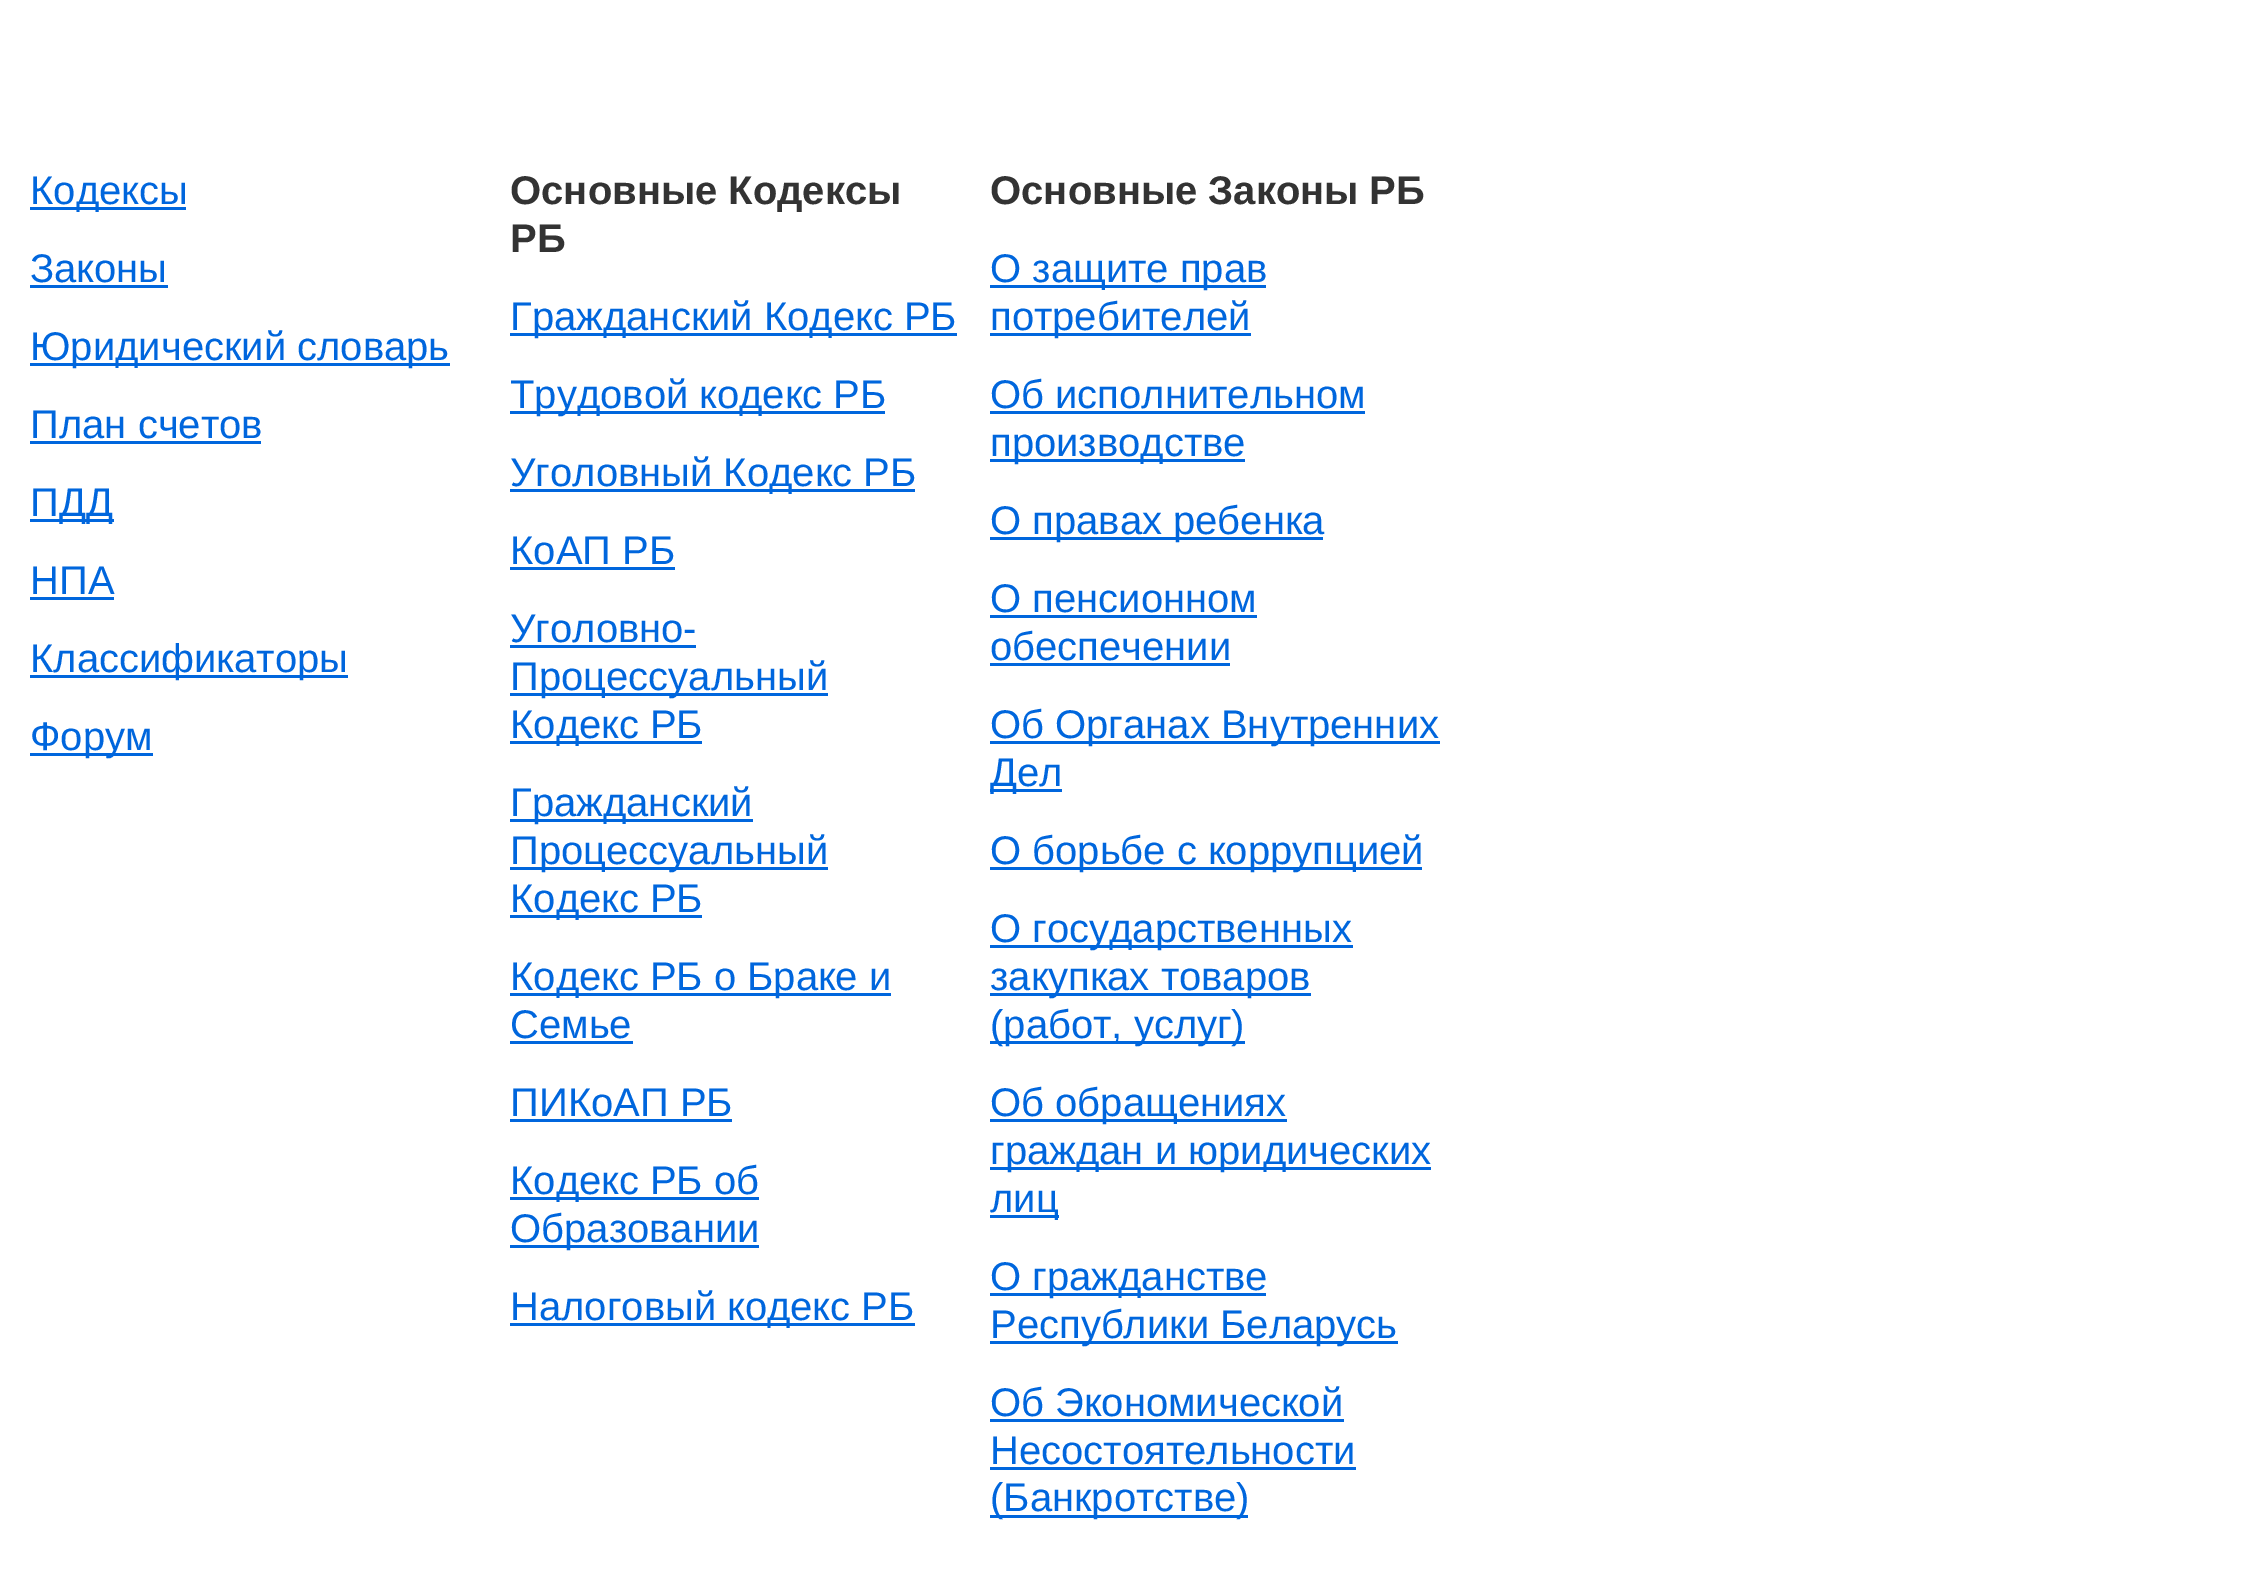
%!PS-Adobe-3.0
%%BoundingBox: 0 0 2249 1581
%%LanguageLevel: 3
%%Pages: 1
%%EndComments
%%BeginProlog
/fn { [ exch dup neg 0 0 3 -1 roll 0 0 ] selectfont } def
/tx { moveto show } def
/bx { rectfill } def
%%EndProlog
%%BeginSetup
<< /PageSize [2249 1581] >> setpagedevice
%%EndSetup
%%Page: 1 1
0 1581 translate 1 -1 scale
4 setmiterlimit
1 setgray
0 0 2249 1581 bx
0 0.4 0.867 setrgbcolor
30 207 156 3 bx
/LiberationSans-Regular 40 fn
(Кодексы) 30 204 tx
(Законы) 30 282 tx
30 285 138 3 bx
30 363 420 3 bx
(Юридический словарь) 30 360 tx
(План счетов) 30 438 tx
30 441 231 3 bx
30 519 84 3 bx
(ПДД) 30 516 tx
(НПА) 30 594 tx
30 597 84 3 bx
30 675 318 3 bx
(Классификаторы) 30 672 tx
30 753 123 3 bx
(Форум) 30 750 tx
/LiberationSans-Bold 40 fn
0.2 setgray
(Основные Кодексы) 510 204 tx
(РБ) 510 252 tx
0 0.4 0.867 setrgbcolor
510 333 447 3 bx
/LiberationSans-Regular 40 fn
(Гражданский Кодекс РБ) 510 330 tx
510 411 375 3 bx
(Трудовой кодекс РБ) 510 408 tx
510 489 405 3 bx
(Уголовный Кодекс РБ) 510 486 tx
(КоАП РБ) 510 564 tx
510 567 165 3 bx
(Уголовно-) 510 642 tx
510 645 186 3 bx
510 693 318 3 bx
(Процессуальный) 510 690 tx
510 741 192 3 bx
(Кодекс РБ) 510 738 tx
510 819 243 3 bx
(Гражданский) 510 816 tx
510 867 318 3 bx
(Процессуальный) 510 864 tx
510 915 192 3 bx
(Кодекс РБ) 510 912 tx
510 993 381 3 bx
(Кодекс РБ о Браке и) 510 990 tx
(Семье) 510 1038 tx
510 1041 123 3 bx
(ПИКоАП РБ) 510 1116 tx
510 1119 222 3 bx
510 1197 249 3 bx
(Кодекс РБ об) 510 1194 tx
510 1245 249 3 bx
(Образовании) 510 1242 tx
510 1323 405 3 bx
(Налоговый кодекс РБ) 510 1320 tx
/LiberationSans-Bold 40 fn
0.2 setgray
(Основные Законы РБ) 990 204 tx
0 0.4 0.867 setrgbcolor
990 285 276 3 bx
/LiberationSans-Regular 40 fn
(О защите прав) 990 282 tx
990 333 261 3 bx
(потребителей) 990 330 tx
(Об исполнительном) 990 408 tx
990 411 375 3 bx
990 459 255 3 bx
(производстве) 990 456 tx
990 537 333 3 bx
(О правах ребенка) 990 534 tx
(О пенсионном) 990 612 tx
990 615 267 3 bx
(обеспечении) 990 660 tx
990 663 240 3 bx
990 741 450 3 bx
(Об Органах Внутренних) 990 738 tx
990 789 72 3 bx
(Дел) 990 786 tx
990 867 432 3 bx
(О борьбе с коррупцией) 990 864 tx
990 945 363 3 bx
(О государственных) 990 942 tx
990 993 321 3 bx
(закупках товаров) 990 990 tx
990 1041 255 3 bx
(\(работ, услуг\)) 990 1038 tx
990 1119 297 3 bx
(Об обращениях) 990 1116 tx
990 1167 441 3 bx
(граждан и юридических) 990 1164 tx
990 1215 69 3 bx
(лиц) 990 1212 tx
990 1293 276 3 bx
(О гражданстве) 990 1290 tx
990 1341 408 3 bx
(Республики Беларусь) 990 1338 tx
(Об Экономической) 990 1416 tx
990 1419 354 3 bx
(Несостоятельности) 990 1464 tx
990 1467 366 3 bx
990 1515 258 3 bx
(\(Банкротстве\)) 990 1511 tx
showpage
%%EOF
